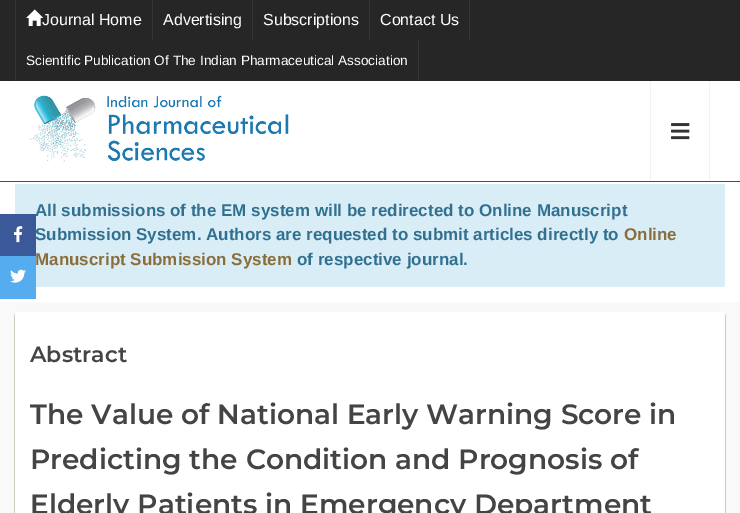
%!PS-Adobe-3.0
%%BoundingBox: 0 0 740 513
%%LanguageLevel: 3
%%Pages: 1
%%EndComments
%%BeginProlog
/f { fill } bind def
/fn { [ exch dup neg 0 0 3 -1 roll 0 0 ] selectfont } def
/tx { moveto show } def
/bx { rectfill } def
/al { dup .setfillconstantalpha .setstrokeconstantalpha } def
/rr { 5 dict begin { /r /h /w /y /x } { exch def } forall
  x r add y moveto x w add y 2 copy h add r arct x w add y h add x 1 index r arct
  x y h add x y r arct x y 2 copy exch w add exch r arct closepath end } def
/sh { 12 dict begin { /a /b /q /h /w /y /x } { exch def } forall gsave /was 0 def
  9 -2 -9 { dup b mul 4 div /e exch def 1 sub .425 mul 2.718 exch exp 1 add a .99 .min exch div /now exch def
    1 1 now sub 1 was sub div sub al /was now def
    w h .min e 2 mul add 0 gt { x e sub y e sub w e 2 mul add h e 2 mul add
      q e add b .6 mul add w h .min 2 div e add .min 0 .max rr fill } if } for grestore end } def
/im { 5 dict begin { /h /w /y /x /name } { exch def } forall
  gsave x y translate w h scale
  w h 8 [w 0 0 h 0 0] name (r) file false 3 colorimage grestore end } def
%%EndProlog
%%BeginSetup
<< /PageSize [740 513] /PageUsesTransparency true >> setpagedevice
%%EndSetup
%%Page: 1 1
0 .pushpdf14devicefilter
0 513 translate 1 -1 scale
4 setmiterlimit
1 setgray
0 0 740 513 bx
0.149 setgray
0 0 740 81 bx
0.208 setgray
15 0 1 81 bx
/LiberationSans-Regular 16 fn
1 setgray
(Journal Home) 42 25 tx
(image0.raw) 26 9 18 17 im
0.208 setgray
152 0 1 40 bx
1 setgray
(Advertising) 163 25 tx
0.208 setgray
252 0 1 40 bx
1 setgray
(Subscriptions) 263 25 tx
0.208 setgray
469 0 1 40 bx
369 0 1 40 bx
1 setgray
(Contact Us) 380 25 tx
0.208 setgray
418 40 1 41 bx
/LiberationSans-Regular 13.6 fn
1 setgray
(Scientific Publication Of The Indian Pharmaceutical Association) 26 65 tx
0.349 0.322 0.039 setrgbcolor
0 181 740 1 bx
(image1.raw) 30 95 259 67 im
0.949 setgray
709 81 1 100 bx
650 81 1 100 bx
(image2.raw) 671 123 19 17 im
0.851 0.929 0.969 setrgbcolor
15 184 710 103 bx
/LiberationSans-Bold 17 fn
0.192 0.439 0.561 setrgbcolor
(All submissions of the EM system will be redirected to Online Manuscript) 35 216 tx
(Submission System. Authors are requested to submit articles directly to) 35 240 tx
0.231 0.349 0.596 setrgbcolor
0 214 36 42 bx
(image3.raw) 14 226 9 17 im
0.333 0.675 0.933 setrgbcolor
0 256 36 43 bx
(image4.raw) 10 269 16 14 im
0.541 0.427 0.231 setrgbcolor
(Online) 624 240 tx
(Manuscript Submission System) 35 265 tx
0.192 0.439 0.561 setrgbcolor
(of respective journal.) 297 265 tx
0.976 setgray
0 302 740 211 bx
0.349 0.322 0.039 setrgbcolor
15 313 710 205 3 0.5 1 sh
1 setgray
15 312 710 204 3 rr f
/Montserrat-SemiBold 22 fn
0.267 setgray
(Abstract) 30 362 tx
/Montserrat-SemiBold 28 fn
(The Value of National Early Warning Score in) 30 424 tx
(Predicting the Condition and Prognosis of) 30 469 tx
(Elderly Patients in Emergency Department) 30 514 tx
.poppdf14devicefilter showpage
%%EOF
